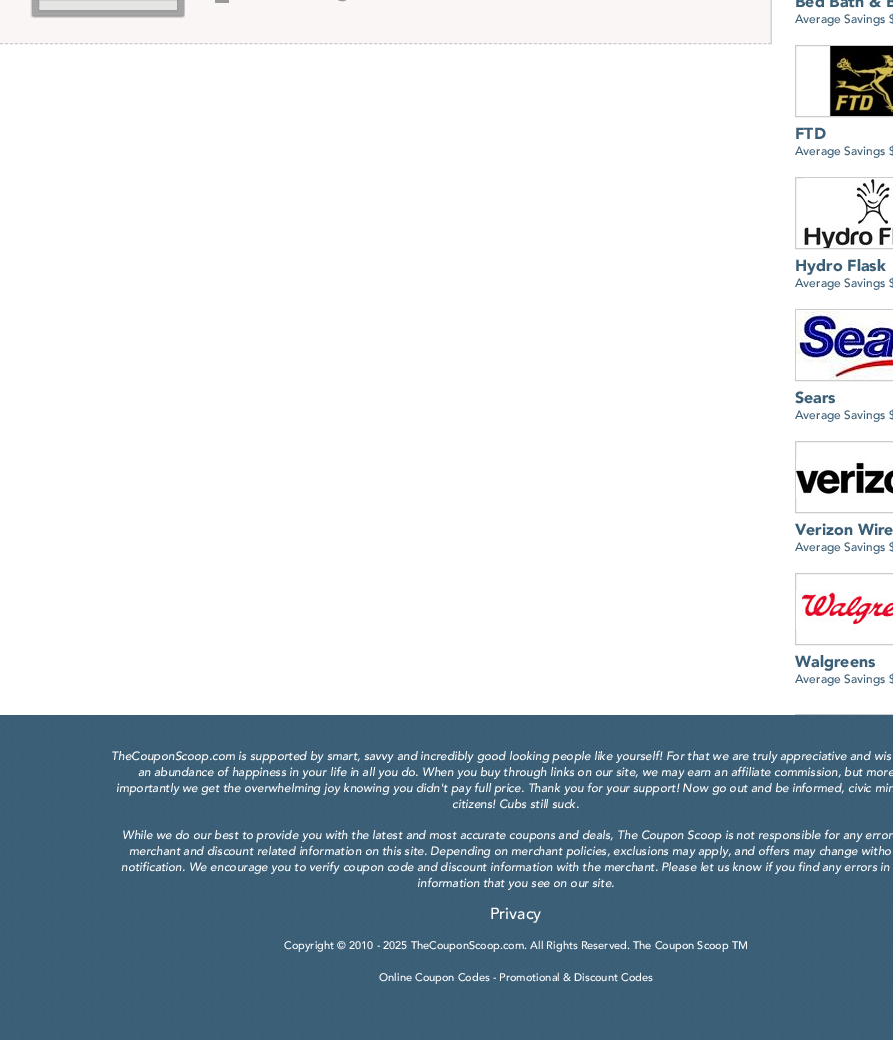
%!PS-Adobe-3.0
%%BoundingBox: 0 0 893 1040
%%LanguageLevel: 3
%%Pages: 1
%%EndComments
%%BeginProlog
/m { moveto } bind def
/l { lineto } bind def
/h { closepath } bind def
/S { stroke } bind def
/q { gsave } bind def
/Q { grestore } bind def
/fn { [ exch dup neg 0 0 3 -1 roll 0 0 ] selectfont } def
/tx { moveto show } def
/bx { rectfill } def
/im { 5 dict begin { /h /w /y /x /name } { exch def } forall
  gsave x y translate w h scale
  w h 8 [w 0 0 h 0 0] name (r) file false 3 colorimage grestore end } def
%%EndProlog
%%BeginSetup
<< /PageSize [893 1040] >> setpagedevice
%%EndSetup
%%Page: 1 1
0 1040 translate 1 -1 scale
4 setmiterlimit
1 setgray
0 0 893 1040 bx
0.976 0.965 0.961 setrgbcolor
0 0 772 44 bx
(image0.raw) 770 0 2 44 im
0.8 setgray
[3 1.99] 0 setdash
0 43.5 m 772 43.5 l S
(image1.raw) 30 0 155 18 im
q 39 0 m 177 0 l 177 10 l 39 10 l h clip newpath 108 -59 translate 70 70 scale
<< /ShadingType 3 /ColorSpace /DeviceRGB /Coords [0 0 0 0 0 1] /Extend [true true] /Function << /FunctionType 3 /Domain [0 1] /Functions [<< /FunctionType 2 /Domain [0 1] /C0 [0.984 0.984 0.98] /C1 [0.953 0.953 0.949] /N 1 >> << /FunctionType 2 /Domain [0 1] /C0 [0.953 0.953 0.949] /C1 [0.898 0.898 0.89] /N 1 >> << /FunctionType 2 /Domain [0 1] /C0 [0.898 0.898 0.89] /C1 [0.898 0.898 0.89] /N 1 >>] /Bounds [0.3 0.6] /Encode [0 1 0 1 0 1] >> >> shfill Q
0.6 setgray
[] 0 setdash
38.5 -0.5 139 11 rectstroke
215 0 14 3 bx
(image2.raw) 338 0 9 2 im
0.8 setgray
795 714 98 1 bx
/Avenir-Black 16 fn
0.235 0.373 0.471 setrgbcolor
(Bed Bath & B) 795 7 tx
/Avenir-Medium 12 fn
(Average Savings $) 795 23 tx
0.8 setgray
795.5 45.5 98 71 rectstroke
(image3.raw) 828 46 65 70 im
/Avenir-Black 16 fn
0.235 0.373 0.471 setrgbcolor
(FTD) 795 139 tx
/Avenir-Medium 12 fn
(Average Savings $) 795 155 tx
0.8 setgray
795.5 177.5 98 71 rectstroke
(image4.raw) 804 178 89 70 im
/Avenir-Black 16 fn
0.235 0.373 0.471 setrgbcolor
(Hydro Flask) 795 271 tx
/Avenir-Medium 12 fn
(Average Savings $) 795 287 tx
0.8 setgray
795.5 309.5 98 71 rectstroke
(image5.raw) 796 310 97 70 im
/Avenir-Black 16 fn
0.235 0.373 0.471 setrgbcolor
(Sears) 795 403 tx
/Avenir-Medium 12 fn
(Average Savings $) 795 419 tx
0.8 setgray
795.5 441.5 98 71 rectstroke
(image6.raw) 796 459 97 39 im
/Avenir-Black 16 fn
0.235 0.373 0.471 setrgbcolor
(Verizon Wire) 795 535 tx
/Avenir-Medium 12 fn
(Average Savings $) 795 551 tx
0.8 setgray
795.5 573.5 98 71 rectstroke
(image7.raw) 796 590 97 40 im
/Avenir-Black 16 fn
0.235 0.373 0.471 setrgbcolor
(Walgreens) 795 667 tx
/Avenir-Medium 12 fn
(Average Savings $) 795 683 tx
(image8.raw) 0 715 893 325 im
/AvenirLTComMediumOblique-Medium 12 fn
1 setgray
(TheCouponScoop.com is supported by smart, savvy and incredibly good looking people like yourself! For that we are truly appreciative and wis) 111 760 tx
(an abundance of happiness in your life in all you do. When you buy through links on our site, we may earn an affiliate commission, but more) 138 776 tx
(importantly we get the overwhelming joy knowing you didn't pay full price. Thank you for your support! Now go out and be informed, civic min) 116 792 tx
(citizens! Cubs still suck.) 452 808 tx
(While we do our best to provide you with the latest and most accurate coupons and deals, The Coupon Scoop is not responsible for any error) 122 839 tx
(merchant and discount related information on this site. Depending on merchant policies, exclusions may apply, and offers may change witho) 129 855 tx
(notification. We encourage you to verify coupon code and discount information with the merchant. Please let us know if you find any errors in) 121 871 tx
(information that you see on our site.) 417 887 tx
/Avenir-Medium 16 fn
(Privacy) 490 919 tx
/Avenir-Medium 11 fn
(Copyright © 2010 - 2025 TheCouponScoop.com. All Rights Reserved. The Coupon Scoop TM) 284 949 tx
(Online Coupon Codes - Promotional & Discount Codes) 379 981 tx
showpage
%%EOF
